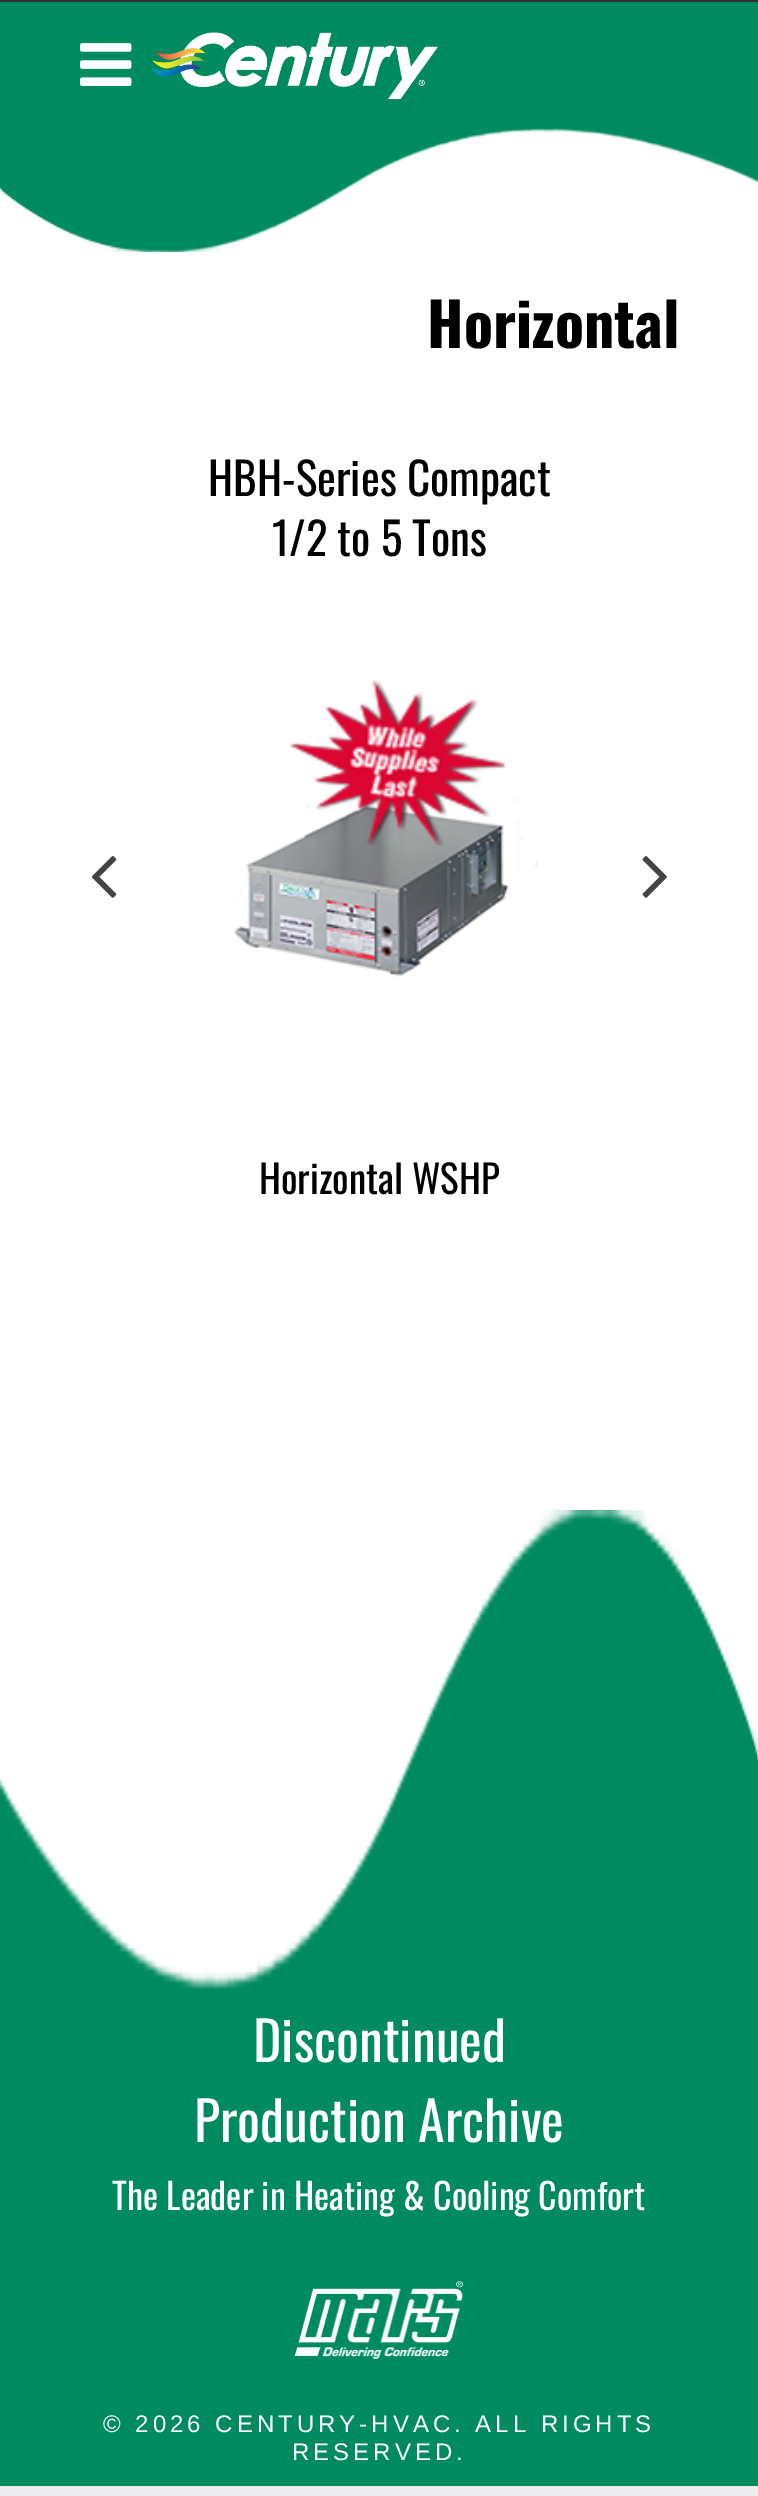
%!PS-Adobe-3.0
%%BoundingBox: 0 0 758 2496
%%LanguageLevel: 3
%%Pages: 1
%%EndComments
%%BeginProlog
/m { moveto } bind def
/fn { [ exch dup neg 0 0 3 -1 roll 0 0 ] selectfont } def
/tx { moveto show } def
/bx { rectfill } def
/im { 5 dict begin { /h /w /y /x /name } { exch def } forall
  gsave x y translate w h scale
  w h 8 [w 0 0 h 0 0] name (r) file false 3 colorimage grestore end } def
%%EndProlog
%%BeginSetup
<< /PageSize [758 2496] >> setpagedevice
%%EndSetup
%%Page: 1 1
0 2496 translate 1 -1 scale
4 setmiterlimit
0.929 setgray
0 0 758 2496 bx
0.2 setgray
0 0 758 2 bx
0 0.541 0.373 setrgbcolor
0 2 758 124 bx
(image0.raw) 80 43 52 43 im
(image1.raw) 151 32 287 68 im
1 setgray
0 127 758 1868 bx
(image2.raw) 0 126 758 126 im
/Oswald-Bold 60 fn
0 setgray
(Horizontal) 427 348 tx
(image3.raw) 91 856 26 42 im
/Oswald-Regular 45 fn
(HBH-Series Compact) 208 496 tx
(1/2 to 5 Tons) 272 556 tx
(image4.raw) 234 680 304 297 im
/Oswald-Regular 39 fn
(Horizontal WSHP) 259 1194 tx
(image5.raw) 642 856 25 42 im
0 0.541 0.373 setrgbcolor
0 1998 758 488 bx
(image6.raw) 0 1510 758 488 im
/Oswald-Regular 54 fn
1 setgray
(Discontinued) 253 2062 tx
(Production Archive) 194 2142 tx
/Oswald-Regular 36 fn
(The Leader in Heating & Cooling Comfort) 112 2210 tx
(image7.raw) 294 2281 170 78 im
/LiberationSans-Regular 24 fn
103 2432 m 4 0 (© 2026 CENTURY-HVAC. ALL RIGHTS) ashow
292 2460 m 4 0 (RESERVED.) ashow
showpage
%%EOF
